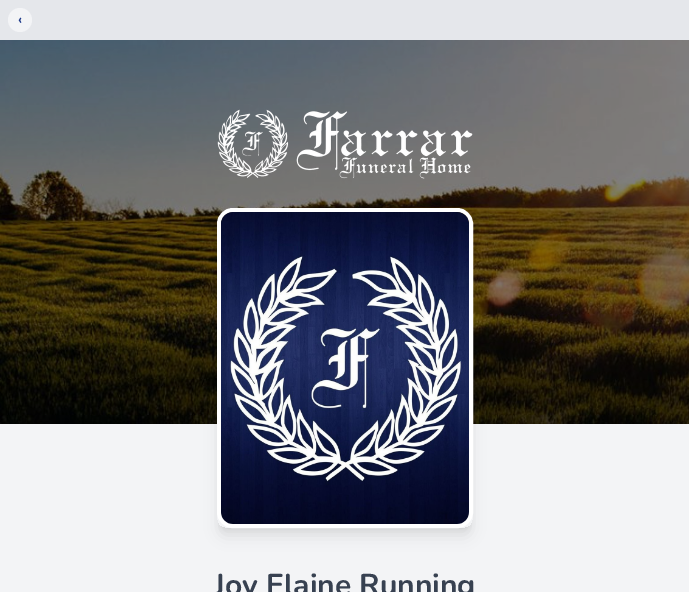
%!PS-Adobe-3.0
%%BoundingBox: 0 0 689 592
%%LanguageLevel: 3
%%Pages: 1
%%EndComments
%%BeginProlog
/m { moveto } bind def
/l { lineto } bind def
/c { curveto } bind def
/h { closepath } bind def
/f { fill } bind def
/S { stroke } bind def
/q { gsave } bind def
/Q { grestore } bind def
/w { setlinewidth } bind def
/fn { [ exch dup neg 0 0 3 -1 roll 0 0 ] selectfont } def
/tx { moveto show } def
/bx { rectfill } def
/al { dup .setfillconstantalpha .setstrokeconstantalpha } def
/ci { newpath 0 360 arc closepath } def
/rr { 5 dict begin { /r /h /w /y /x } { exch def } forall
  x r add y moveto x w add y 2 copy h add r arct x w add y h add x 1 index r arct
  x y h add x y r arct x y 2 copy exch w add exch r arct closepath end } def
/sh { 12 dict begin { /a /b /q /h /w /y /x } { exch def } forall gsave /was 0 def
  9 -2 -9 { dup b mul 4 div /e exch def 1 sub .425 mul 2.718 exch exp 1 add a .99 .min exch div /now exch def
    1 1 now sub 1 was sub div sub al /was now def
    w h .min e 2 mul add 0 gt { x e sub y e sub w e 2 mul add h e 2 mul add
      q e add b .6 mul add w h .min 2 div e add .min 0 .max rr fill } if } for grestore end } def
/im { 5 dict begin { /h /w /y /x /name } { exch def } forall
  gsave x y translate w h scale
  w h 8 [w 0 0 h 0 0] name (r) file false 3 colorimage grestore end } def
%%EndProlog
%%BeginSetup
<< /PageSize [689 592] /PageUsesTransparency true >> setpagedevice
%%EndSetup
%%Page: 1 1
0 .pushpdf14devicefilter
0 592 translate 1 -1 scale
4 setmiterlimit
0.953 0.957 0.965 setrgbcolor
0 0 689 592 bx
0.898 0.906 0.922 setrgbcolor
0 0 689 40 bx
0.953 0.957 0.965 setrgbcolor
20 20 12 ci f
/Nunito-Bold 14 fn
0.118 0.227 0.541 setrgbcolor
(‹) 18 24 tx
(image0.raw) 0 40 689 384 im
(image1.raw) 217 109 256 70 im
q
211 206 m 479 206 l 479 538 l 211 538 l h 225 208 m 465 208 l 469.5 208 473 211.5 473 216 c 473 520 l 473 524.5 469.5 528 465 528 c 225 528 l 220.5 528 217 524.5 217 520 c 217 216 l 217 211.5 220.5 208 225 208 c h eoclip newpath
0 setgray
221 216 248 312 4 3 0.1 sh
Q
q
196 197 m 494 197 l 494 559 l 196 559 l h 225 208 m 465 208 l 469.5 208 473 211.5 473 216 c 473 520 l 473 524.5 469.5 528 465 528 c 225 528 l 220.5 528 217 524.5 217 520 c 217 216 l 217 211.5 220.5 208 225 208 c h eoclip newpath
0 setgray
220 221 250 314 5 7.5 0.1 sh
Q
1 setgray
4 w
219 210 252 316 14 rr S
(image2.raw) 221 212 248 312 im
/Nunito-Bold 30 fn
0.216 0.255 0.318 setrgbcolor
(Joy Elaine Running) 214 595 tx
.poppdf14devicefilter showpage
%%EOF
